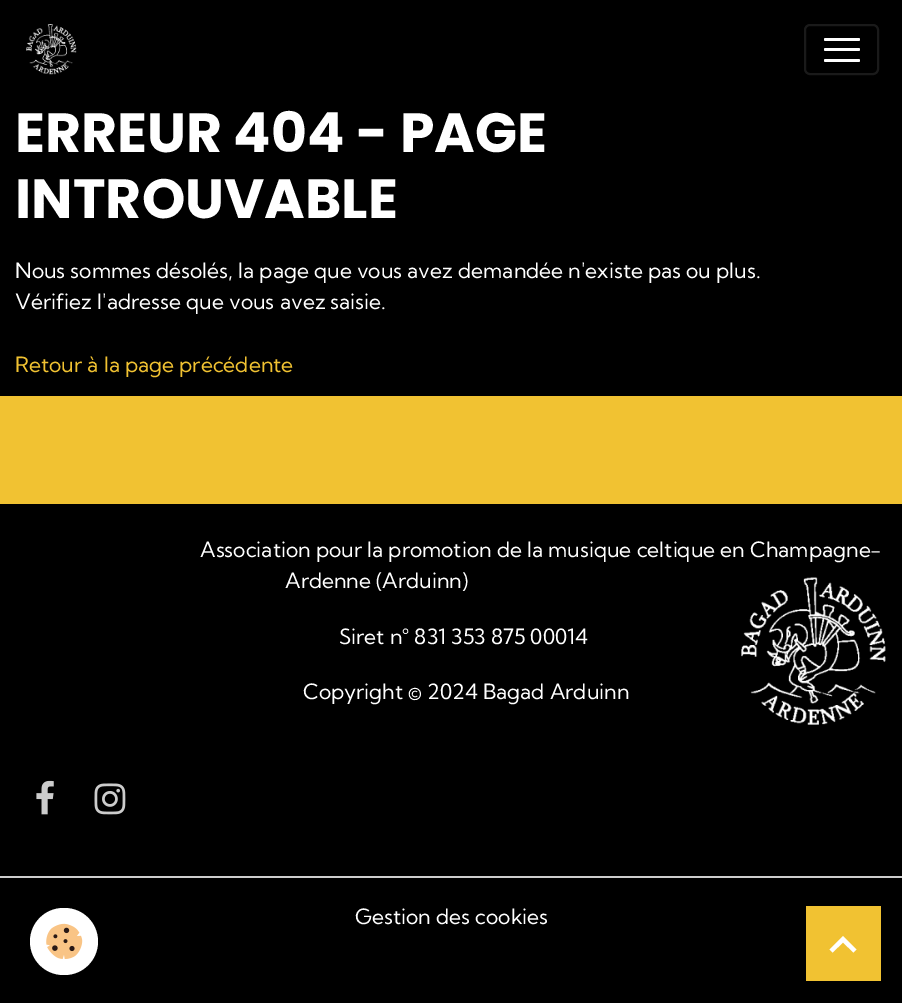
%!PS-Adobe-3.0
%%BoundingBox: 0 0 902 1003
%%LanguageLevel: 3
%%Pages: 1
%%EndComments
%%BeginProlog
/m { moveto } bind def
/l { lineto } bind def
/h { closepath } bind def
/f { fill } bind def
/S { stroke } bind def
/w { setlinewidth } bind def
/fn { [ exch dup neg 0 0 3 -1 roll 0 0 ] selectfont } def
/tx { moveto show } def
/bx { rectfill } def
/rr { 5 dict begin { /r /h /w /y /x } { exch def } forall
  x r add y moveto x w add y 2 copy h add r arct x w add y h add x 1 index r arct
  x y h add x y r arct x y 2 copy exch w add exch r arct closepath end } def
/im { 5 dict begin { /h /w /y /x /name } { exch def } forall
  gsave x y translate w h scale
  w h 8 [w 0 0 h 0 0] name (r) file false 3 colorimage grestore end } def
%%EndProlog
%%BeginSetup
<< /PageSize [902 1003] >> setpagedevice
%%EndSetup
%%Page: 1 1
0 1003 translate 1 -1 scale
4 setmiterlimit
0 setgray
0 0 902 1003 bx
(image0.raw) 26 24 51 51 im
0.102 setgray
2 w
805 25 73 49 5 rr S
1 setgray
824 38 36 3 1.5 rr f
824 48 36 3 1.5 rr f
824 59 36 3 1.5 rr f
/Poppins-Bold 55.25 fn
(ERREUR 404 - PAGE) 15 152 tx
(INTROUVABLE) 15 218 tx
/KumbhSans-Regular 21 fn
(Nous sommes désolés, la page que vous avez demandée n'existe pas ou plus.) 15 278 tx
(Vérifiez l'adresse que vous avez saisie.) 15 309 tx
0.945 0.761 0.196 setrgbcolor
(Retour à la page précédente) 15 372 tx
0 396 902 108 bx
1 setgray
(Association pour la promotion de la musique celtique en Champagne-) 200 557 tx
(Ardenne \(Arduinn\)) 285 588 tx
(image1.raw) 741 577 145 148 im
(Siret n° 831 353 875 00014) 339 644 tx
(Copyright © 2024 Bagad Arduinn) 303 699 tx
(image2.raw) 36 780 18 35 im
(image3.raw) 94 783 32 32 im
0.8 setgray
0 876 902 2 bx
1 setgray
(Gestion des cookies) 355 924 tx
30 908 68 67 33.5 rr f
(image4.raw) 46 923 37 36 im
0.945 0.761 0.196 setrgbcolor
806 906 75 75 bx
1 setgray
843 936 m 856.5 949.5 l 853.5 952.5 l 843 942.5 l 832.5 952.5 l 829.5 949.5 l h f
showpage
%%EOF
